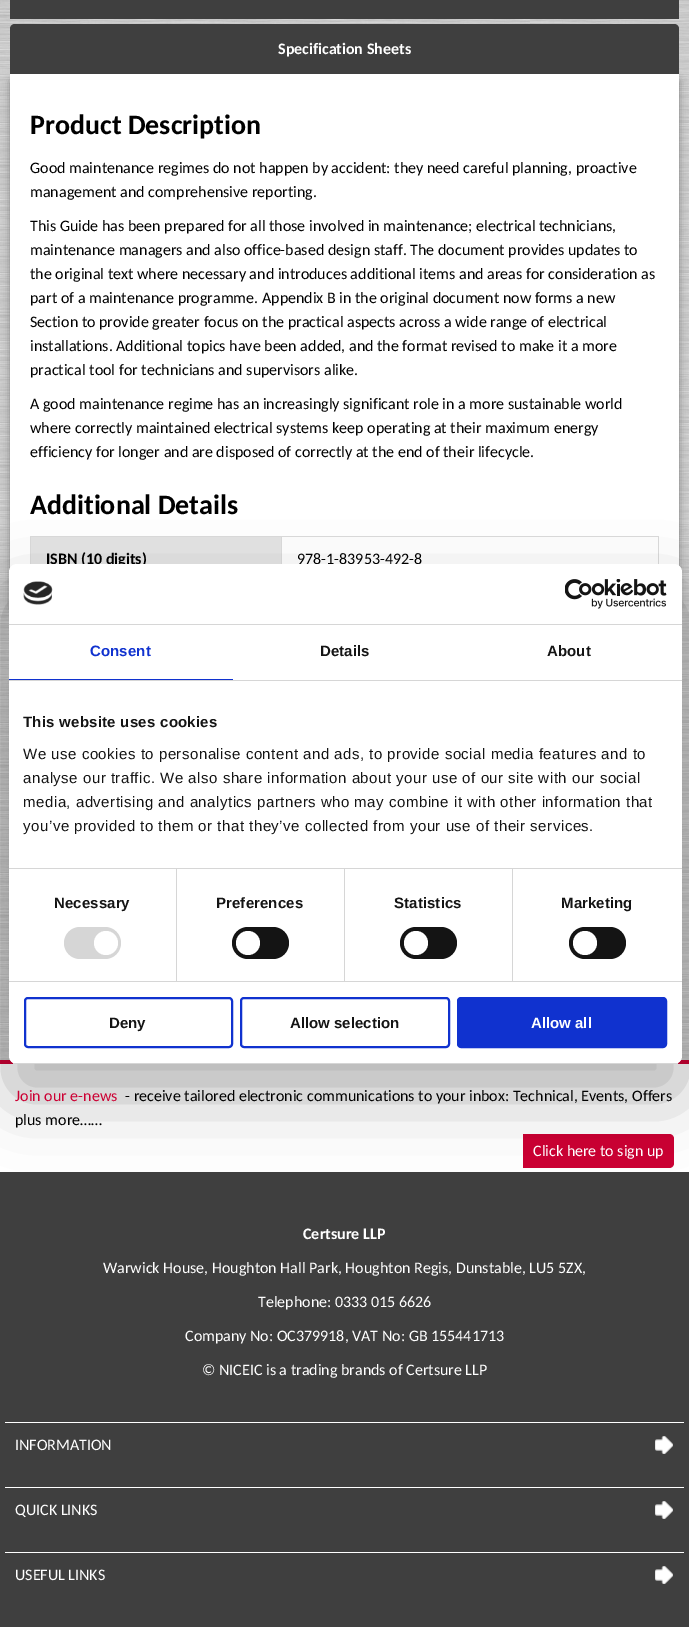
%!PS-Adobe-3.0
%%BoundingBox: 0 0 689 1627
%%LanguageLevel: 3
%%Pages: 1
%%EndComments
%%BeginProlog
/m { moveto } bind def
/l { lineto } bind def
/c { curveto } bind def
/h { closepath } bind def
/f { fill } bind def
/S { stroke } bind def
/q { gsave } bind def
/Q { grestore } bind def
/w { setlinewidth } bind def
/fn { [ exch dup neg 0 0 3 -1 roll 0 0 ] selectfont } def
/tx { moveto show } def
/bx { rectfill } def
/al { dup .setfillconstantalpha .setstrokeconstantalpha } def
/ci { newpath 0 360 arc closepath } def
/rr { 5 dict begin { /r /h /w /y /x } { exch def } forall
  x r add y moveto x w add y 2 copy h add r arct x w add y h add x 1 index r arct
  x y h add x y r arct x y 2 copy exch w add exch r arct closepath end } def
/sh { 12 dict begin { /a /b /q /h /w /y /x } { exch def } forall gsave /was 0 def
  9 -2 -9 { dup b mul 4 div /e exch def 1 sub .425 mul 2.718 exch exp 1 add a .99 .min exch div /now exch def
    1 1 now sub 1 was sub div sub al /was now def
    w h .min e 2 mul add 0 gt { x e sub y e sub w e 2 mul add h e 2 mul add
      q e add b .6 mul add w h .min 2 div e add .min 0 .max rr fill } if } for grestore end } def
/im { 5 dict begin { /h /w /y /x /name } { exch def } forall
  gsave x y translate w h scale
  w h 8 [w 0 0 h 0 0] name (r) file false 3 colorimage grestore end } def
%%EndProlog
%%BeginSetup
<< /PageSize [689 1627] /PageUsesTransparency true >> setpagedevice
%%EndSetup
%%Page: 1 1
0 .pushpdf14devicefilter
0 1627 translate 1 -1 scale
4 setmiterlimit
1 setgray
0 0 689 1627 bx
(image0.raw) 0 0 689 1060 im
0.247 setgray
10 0 669 19 bx
0.502 setgray
10 78 669 533 5 4 1 sh
0.247 setgray
15 24 m 674 24 l 677 24 679 26 679 29 c 679 74 l 10 74 l 10 29 l 10 26 12 24 15 24 c h f
/Carlito-Bold 16 fn
1 setgray
(Specification Sheets) 278 54 tx
10 74 669 495 bx
/Carlito-Bold 28 fn
0 setgray
(Product Description) 30 134 tx
/Carlito-Regular 16 fn
(Good maintenance regimes do not happen by accident: they need careful planning, proactive) 30 173 tx
(management and comprehensive reporting.) 30 197 tx
(This Guide has been prepared for all those involved in maintenance; electrical technicians,) 30 231 tx
(maintenance managers and also office-based design staff. The document provides updates to) 30 255 tx
(the original text where necessary and introduces additional items and areas for consideration as) 30 279 tx
(part of a maintenance programme. Appendix B in the original document now forms a new) 30 303 tx
(Section to provide greater focus on the practical aspects across a wide range of electrical) 30 327 tx
(installations. Additional topics have been added, and the format revised to make it a more) 30 351 tx
(practical tool for technicians and supervisors alike.) 30 375 tx
(A good maintenance regime has an increasingly significant role in a more sustainable world) 30 409 tx
(where correctly maintained electrical systems keep operating at their maximum energy) 30 433 tx
(efficiency for longer and are disposed of correctly at the end of their lifecycle.) 30 457 tx
/Carlito-Bold 28 fn
(Additional Details) 30 514 tx
0.898 setgray
31 537 250 27 bx
0.863 setgray
281 536 378 1 bx
281 536 1 28 bx
30 536 252 1 bx
30 536 1 28 bx
/Carlito-Bold 16 fn
0 setgray
(ISBN \(10 digits\)) 46 564 tx
0.863 setgray
658 536 1 28 bx
/Carlito-Regular 16 fn
0 setgray
(978-1-83953-492-8) 297 564 tx
0.502 setgray
15 681 659 333 5 4 1 sh
0.247 setgray
0 1172 689 455 bx
0.8 0 0.2 setrgbcolor
0 1060 689 4 bx
523 1134 m 669 1134 l 672 1134 674 1136 674 1139 c 674 1163 l 674 1166 672 1168 669 1168 c 523 1168 l h f
0 setgray
9 596 673 500 8 34 0.3 sh
1 setgray
9 564 673 500 8 rr f
0.839 setgray
9 624 673 1 bx
(image1.raw) 23 581 30 24 im
(image2.raw) 565 579 102 30 im
9 680 673 1 bx
0.063 0.196 0.812 setrgbcolor
9 679 224 1 bx
/LiberationSans-Bold 15 fn
90 656 m 0.1 0 (Consent) ashow
0.078 setgray
320 656 m 0.1 0 (Details) ashow
547 656 m 0.1 0 (About) ashow
0.839 setgray
9 868 673 1 bx
0.078 setgray
23 727 m 0.25 0 (This website uses cookies) ashow
/LiberationSans-Regular 15 fn
23 759 m 0.5 0 (We use cookies to personalise content and ads, to provide social media features and to) ashow
23 783 m 0.5 0 (analyse our traffic. We also share information about your use of our site with our social) ashow
23 807 m 0.5 0 (media, advertising and analytics partners who may combine it with other information that) ashow
23 831 m 0.5 0 (you’ve provided to them or that they’ve collected from your use of their services.) ashow
0.839 setgray
9 981 673 1 bx
176 869 1 112 bx
/LiberationSans-Bold 15 fn
0.078 setgray
54 908 m 0.1 0 (Necessary) ashow
0.839 setgray
64 927 57 32 16 rr f
1 setgray
106 943 12 ci f
0.839 setgray
344 869 1 112 bx
0.078 setgray
216 908 m 0.1 0 (Preferences) ashow
232 927 57 32 16 rr f
1 setgray
248 943 12 ci f
0.839 setgray
512 869 1 112 bx
0.078 setgray
394 908 m 0.1 0 (Statistics) ashow
400 927 57 32 16 rr f
1 setgray
416 943 12 ci f
0.078 setgray
561 908 m 0.1 0 (Marketing) ashow
569 927 57 32 16 rr f
1 setgray
585 943 12 ci f
q
9 564 673 500 8 rr clip newpath
0.839 setgray
9 1063 673 1 bx
Q
0.063 0.196 0.812 setrgbcolor
2 w
25 998 207 49 3 rr S
0.078 setgray
(Deny) 109 1028 tx
0.063 0.196 0.812 setrgbcolor
241 998 208 49 3 rr S
0.078 setgray
(Allow selection) 290 1028 tx
0.063 0.196 0.812 setrgbcolor
458 998 208 49 3 rr q f Q
S
1 setgray
(Allow all) 531 1028 tx
/Carlito-Regular 16 fn
0.8 0 0.2 setrgbcolor
(Join our e-news) 15 1101 tx
0 setgray
(- receive tailored electronic communications to your inbox: Technical, Events, Offers) 125 1101 tx
(plus more……) 15 1125 tx
1 setgray
(Click here to sign up) 533 1156 tx
/Carlito-Bold 16 fn
(Certsure LLP) 303 1239 tx
/Carlito-Regular 16 fn
(Warwick House, Houghton Hall Park, Houghton Regis, Dunstable, LU5 5ZX,) 103 1273 tx
(Telephone: 0333 015 6626) 258 1307 tx
(Company No: OC379918, VAT No: GB 155441713) 185 1341 tx
(© NICEIC is a trading brands of Certsure LLP) 202 1375 tx
5 1422 679 1 bx
(INFORMATION) 15 1450 tx
(image3.raw) 655 1436 18 18 im
5 1487 679 1 bx
(QUICK LINKS) 15 1515 tx
(image3.raw) 655 1501 18 18 im
5 1552 679 1 bx
(USEFUL LINKS) 15 1580 tx
(image3.raw) 655 1566 18 18 im
.poppdf14devicefilter showpage
%%EOF
